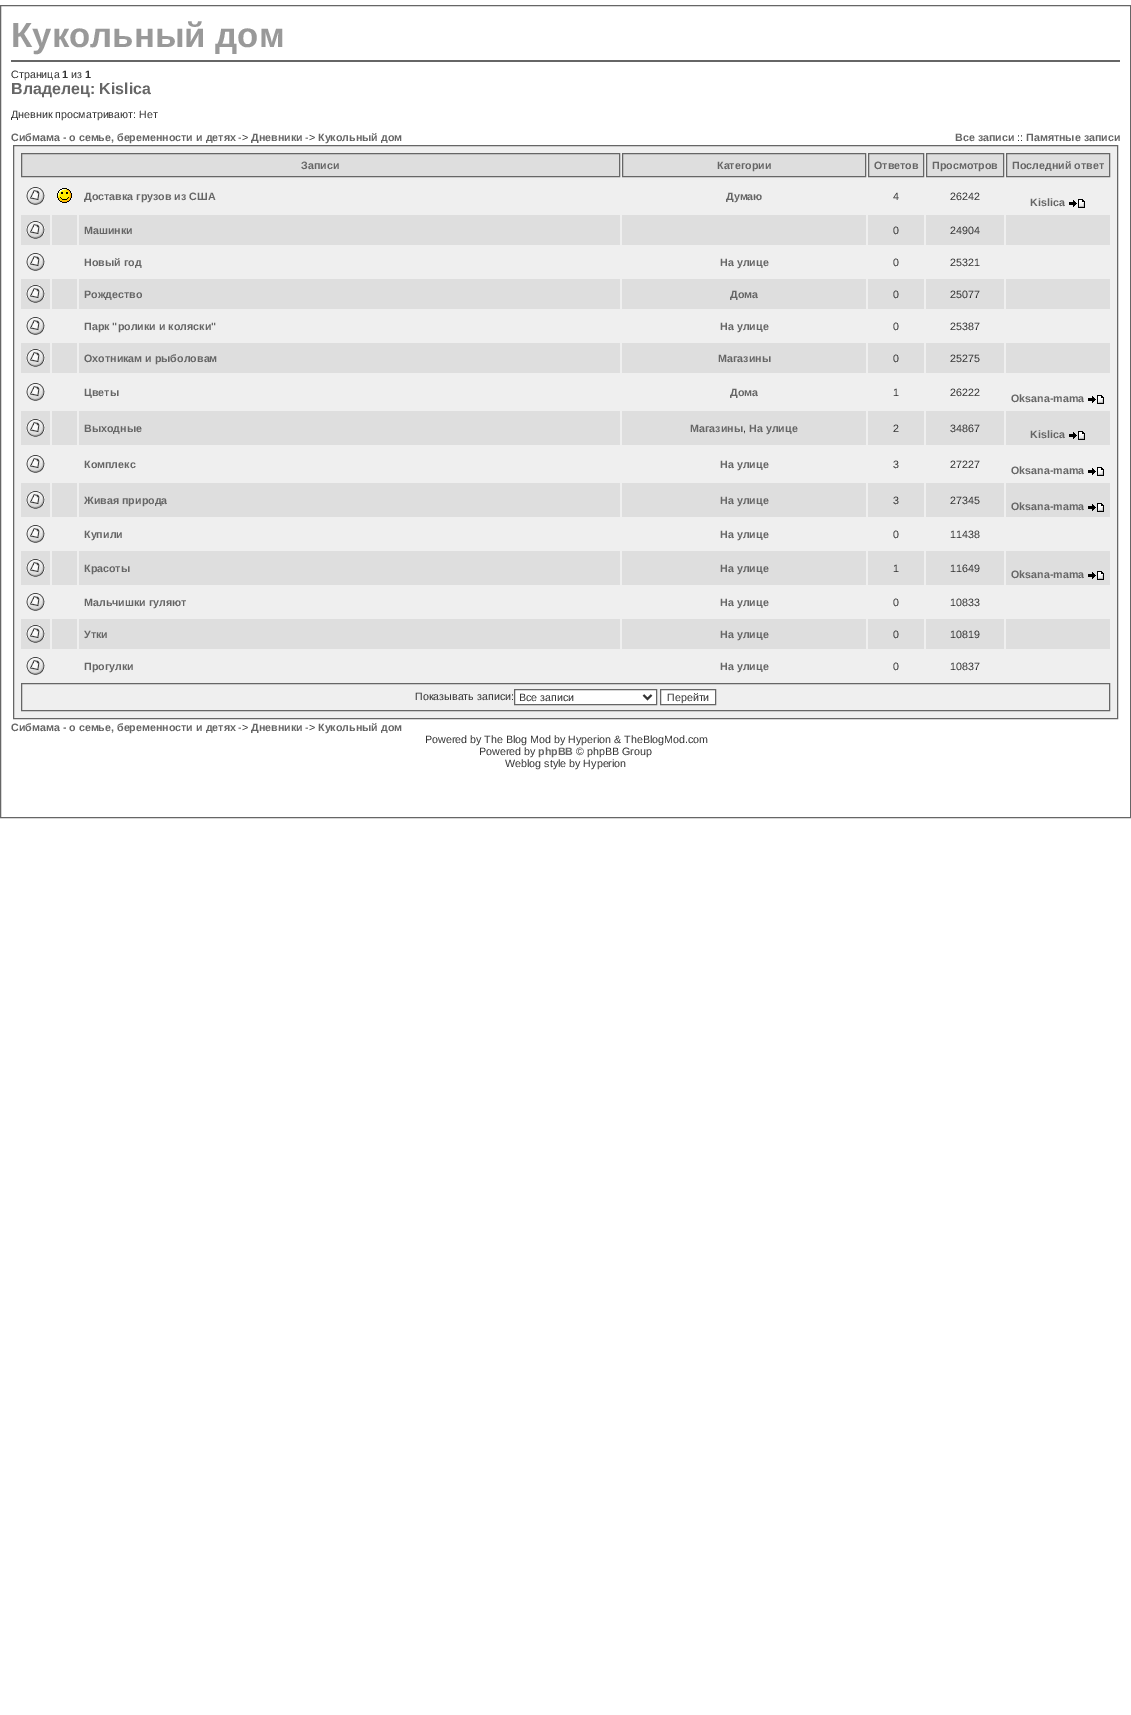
%!PS-Adobe-3.0
%%BoundingBox: 0 0 1131 1715
%%LanguageLevel: 3
%%Pages: 1
%%EndComments
%%BeginProlog
/m { moveto } bind def
/l { lineto } bind def
/h { closepath } bind def
/f { fill } bind def
/S { stroke } bind def
/q { gsave } bind def
/Q { grestore } bind def
/w { setlinewidth } bind def
/fn { [ exch dup neg 0 0 3 -1 roll 0 0 ] selectfont } def
/tx { moveto show } def
/bx { rectfill } def
/im { 5 dict begin { /h /w /y /x /name } { exch def } forall
  gsave x y translate w h scale
  w h 8 [w 0 0 h 0 0] name (r) file false 3 colorimage grestore end } def
%%EndProlog
%%BeginSetup
<< /PageSize [1131 1715] >> setpagedevice
%%EndSetup
%%Page: 1 1
0 1715 translate 1 -1 scale
4 setmiterlimit
1 setgray
0 0 1131 1715 bx
0.4 setgray
0.5 5.5 1130 812 rectstroke
/LiberationSans-Bold 34.75 fn
0.6 setgray
(Кукольный дом) 11 47 tx
0.4 setgray
11 60 1109 2 bx
/LiberationSans-Regular 10.7 fn
0.2 setgray
(Страница) 11 78 tx
/LiberationSans-Bold 10.7 fn
(1) 62 78 tx
/LiberationSans-Regular 10.7 fn
(из) 71 78 tx
/LiberationSans-Bold 10.7 fn
(1) 85 78 tx
/LiberationSans-Bold 16 fn
0.4 setgray
(Владелец: Kislica) 11 94 tx
/LiberationSans-Regular 10.7 fn
0.2 setgray
(Дневник просматривают: Нет) 11 118 tx
/LiberationSans-Bold 10.7 fn
0.4 setgray
(Сибмама - о семье, беременности и детях) 11 141 tx
/LiberationSans-Regular 10.7 fn
0.2 setgray
(->) 238 141 tx
/LiberationSans-Bold 10.7 fn
0.4 setgray
(Дневники) 251 141 tx
/LiberationSans-Regular 10.7 fn
0.2 setgray
(->) 305 141 tx
/LiberationSans-Bold 10.7 fn
0.4 setgray
(Кукольный дом) 318 141 tx
(Все записи) 955 141 tx
/LiberationSans-Regular 10.7 fn
0.2 setgray
(::) 1017 141 tx
/LiberationSans-Bold 10.7 fn
0.4 setgray
(Памятные записи) 1026 141 tx
0.937 setgray
13.5 145.5 m 1117.5 145.5 l 1117.5 718.5 l 13.5 718.5 l h q f Q
0.4 setgray
S
0.871 setgray
21.5 153.5 m 619.5 153.5 l 619.5 176.5 l 21.5 176.5 l h q f Q
0.4 setgray
S
(Записи) 301 169 tx
0.871 setgray
622.5 153.5 m 865.5 153.5 l 865.5 176.5 l 622.5 176.5 l h q f Q
0.4 setgray
S
(Категории) 717 169 tx
0.871 setgray
868.5 153.5 m 923.5 153.5 l 923.5 176.5 l 868.5 176.5 l h q f Q
0.4 setgray
S
(Ответов) 874 169 tx
0.871 setgray
926.5 153.5 m 1003.5 153.5 l 1003.5 176.5 l 926.5 176.5 l h q f Q
0.4 setgray
S
(Просмотров) 932 169 tx
0.871 setgray
1006.5 153.5 m 1109.5 153.5 l 1109.5 176.5 l 1006.5 176.5 l h q f Q
0.4 setgray
S
(Последний ответ) 1012 169 tx
(image0.raw) 26 187 19 18 im
(image1.raw) 57 188 15 15 im
(Доставка грузов из США) 84 200 tx
(Думаю) 726 200 tx
/LiberationSans-Regular 10.7 fn
0.2 setgray
(4) 893 200 tx
(26242) 950 200 tx
/LiberationSans-Bold 10.7 fn
0.4 setgray
(Kislica) 1030 206 tx
(image2.raw) 1069 199 16 9 im
0.871 setgray
21 215 29 30 bx
(image3.raw) 26 221 19 18 im
52 215 25 30 bx
79 215 541 30 bx
0.4 setgray
(Машинки) 84 234 tx
0.871 setgray
622 215 244 30 bx
868 215 56 30 bx
/LiberationSans-Regular 10.7 fn
0.2 setgray
(0) 893 234 tx
0.871 setgray
926 215 78 30 bx
0.2 setgray
(24904) 950 234 tx
0.871 setgray
1006 215 104 30 bx
(image0.raw) 26 253 19 18 im
/LiberationSans-Bold 10.7 fn
0.4 setgray
(Новый год) 84 266 tx
(На улице) 720 266 tx
/LiberationSans-Regular 10.7 fn
0.2 setgray
(0) 893 266 tx
(25321) 950 266 tx
0.871 setgray
21 279 29 30 bx
(image3.raw) 26 285 19 18 im
52 279 25 30 bx
79 279 541 30 bx
/LiberationSans-Bold 10.7 fn
0.4 setgray
(Рождество) 84 298 tx
0.871 setgray
622 279 244 30 bx
0.4 setgray
(Дома) 730 298 tx
0.871 setgray
868 279 56 30 bx
/LiberationSans-Regular 10.7 fn
0.2 setgray
(0) 893 298 tx
0.871 setgray
926 279 78 30 bx
0.2 setgray
(25077) 950 298 tx
0.871 setgray
1006 279 104 30 bx
(image0.raw) 26 317 19 18 im
/LiberationSans-Bold 10.7 fn
0.4 setgray
(Парк "ролики и коляски") 84 330 tx
(На улице) 720 330 tx
/LiberationSans-Regular 10.7 fn
0.2 setgray
(0) 893 330 tx
(25387) 950 330 tx
0.871 setgray
21 343 29 30 bx
(image3.raw) 26 349 19 18 im
52 343 25 30 bx
79 343 541 30 bx
/LiberationSans-Bold 10.7 fn
0.4 setgray
(Охотникам и рыболовам) 84 362 tx
0.871 setgray
622 343 244 30 bx
0.4 setgray
(Магазины) 718 362 tx
0.871 setgray
868 343 56 30 bx
/LiberationSans-Regular 10.7 fn
0.2 setgray
(0) 893 362 tx
0.871 setgray
926 343 78 30 bx
0.2 setgray
(25275) 950 362 tx
0.871 setgray
1006 343 104 30 bx
(image0.raw) 26 383 19 18 im
/LiberationSans-Bold 10.7 fn
0.4 setgray
(Цветы) 84 396 tx
(Дома) 730 396 tx
/LiberationSans-Regular 10.7 fn
0.2 setgray
(1) 893 396 tx
(26222) 950 396 tx
/LiberationSans-Bold 10.7 fn
0.4 setgray
(Oksana-mama) 1011 402 tx
(image2.raw) 1088 395 16 9 im
0.871 setgray
21 411 29 34 bx
(image3.raw) 26 419 19 18 im
52 411 25 34 bx
79 411 541 34 bx
0.4 setgray
(Выходные) 84 432 tx
0.871 setgray
622 411 244 34 bx
0.4 setgray
(Магазины) 690 432 tx
/LiberationSans-Regular 10.7 fn
0.2 setgray
(,) 743 432 tx
/LiberationSans-Bold 10.7 fn
0.4 setgray
(На улице) 749 432 tx
0.871 setgray
868 411 56 34 bx
/LiberationSans-Regular 10.7 fn
0.2 setgray
(2) 893 432 tx
0.871 setgray
926 411 78 34 bx
0.2 setgray
(34867) 950 432 tx
0.871 setgray
1006 411 104 34 bx
/LiberationSans-Bold 10.7 fn
0.4 setgray
(Kislica) 1030 438 tx
(image4.raw) 1069 431 16 9 im
(image0.raw) 26 455 19 18 im
(Комплекс) 84 468 tx
(На улице) 720 468 tx
/LiberationSans-Regular 10.7 fn
0.2 setgray
(3) 893 468 tx
(27227) 950 468 tx
/LiberationSans-Bold 10.7 fn
0.4 setgray
(Oksana-mama) 1011 474 tx
(image2.raw) 1088 467 16 9 im
0.871 setgray
21 483 29 34 bx
(image3.raw) 26 491 19 18 im
52 483 25 34 bx
79 483 541 34 bx
0.4 setgray
(Живая природа) 84 504 tx
0.871 setgray
622 483 244 34 bx
0.4 setgray
(На улице) 720 504 tx
0.871 setgray
868 483 56 34 bx
/LiberationSans-Regular 10.7 fn
0.2 setgray
(3) 893 504 tx
0.871 setgray
926 483 78 34 bx
0.2 setgray
(27345) 950 504 tx
0.871 setgray
1006 483 104 34 bx
/LiberationSans-Bold 10.7 fn
0.4 setgray
(Oksana-mama) 1011 510 tx
(image4.raw) 1088 503 16 9 im
(image0.raw) 26 525 19 18 im
(Купили) 84 538 tx
(На улице) 720 538 tx
/LiberationSans-Regular 10.7 fn
0.2 setgray
(0) 893 538 tx
(11438) 950 538 tx
0.871 setgray
21 551 29 34 bx
(image3.raw) 26 559 19 18 im
52 551 25 34 bx
79 551 541 34 bx
/LiberationSans-Bold 10.7 fn
0.4 setgray
(Красоты) 84 572 tx
0.871 setgray
622 551 244 34 bx
0.4 setgray
(На улице) 720 572 tx
0.871 setgray
868 551 56 34 bx
/LiberationSans-Regular 10.7 fn
0.2 setgray
(1) 893 572 tx
0.871 setgray
926 551 78 34 bx
0.2 setgray
(11649) 950 572 tx
0.871 setgray
1006 551 104 34 bx
/LiberationSans-Bold 10.7 fn
0.4 setgray
(Oksana-mama) 1011 578 tx
(image4.raw) 1088 571 16 9 im
(image0.raw) 26 593 19 18 im
(Mальчишки гуляют) 84 606 tx
(На улице) 720 606 tx
/LiberationSans-Regular 10.7 fn
0.2 setgray
(0) 893 606 tx
(10833) 950 606 tx
0.871 setgray
21 619 29 30 bx
(image3.raw) 26 625 19 18 im
52 619 25 30 bx
79 619 541 30 bx
/LiberationSans-Bold 10.7 fn
0.4 setgray
(Утки) 84 638 tx
0.871 setgray
622 619 244 30 bx
0.4 setgray
(На улице) 720 638 tx
0.871 setgray
868 619 56 30 bx
/LiberationSans-Regular 10.7 fn
0.2 setgray
(0) 893 638 tx
0.871 setgray
926 619 78 30 bx
0.2 setgray
(10819) 950 638 tx
0.871 setgray
1006 619 104 30 bx
(image0.raw) 26 657 19 18 im
/LiberationSans-Bold 10.7 fn
0.4 setgray
(Прогулки) 84 670 tx
(На улице) 720 670 tx
/LiberationSans-Regular 10.7 fn
0.2 setgray
(0) 893 670 tx
(10837) 950 670 tx
0.4 setgray
21.5 683.5 1088 27 rectstroke
0.2 setgray
(Показывать записи:) 415 700 tx
1 setgray
514.5 689.5 m 656.5 689.5 l 656.5 704.5 l 514.5 704.5 l h q f Q
0.4 setgray
S
0.2 setgray
2 w
643.5 695 m 647.5 699 l 651.5 695 l S
(Все записи) 519 701 tx
1 setgray
660.5 689.5 m 715.5 689.5 l 715.5 704.5 l 660.5 704.5 l h q f Q
0.4 setgray
1 w
S
0.2 setgray
(Перейти) 667 701 tx
/LiberationSans-Bold 10.7 fn
0.4 setgray
(Сибмама - о семье, беременности и детях) 11 731 tx
/LiberationSans-Regular 10.7 fn
0.2 setgray
(->) 238 731 tx
/LiberationSans-Bold 10.7 fn
0.4 setgray
(Дневники) 251 731 tx
/LiberationSans-Regular 10.7 fn
0.2 setgray
(->) 305 731 tx
/LiberationSans-Bold 10.7 fn
0.4 setgray
(Кукольный дом) 318 731 tx
/LiberationSans-Regular 10.7 fn
0.2 setgray
(Powered by The Blog Mod by Hyperion & TheBlogMod.com) 425 743 tx
(Powered by) 479 755 tx
/LiberationSans-Bold 10.7 fn
0.4 setgray
(phpBB) 538 755 tx
/LiberationSans-Regular 10.7 fn
0.2 setgray
(© phpBB Group) 576 755 tx
(Weblog style by Hyperion) 505 767 tx
showpage
%%EOF
